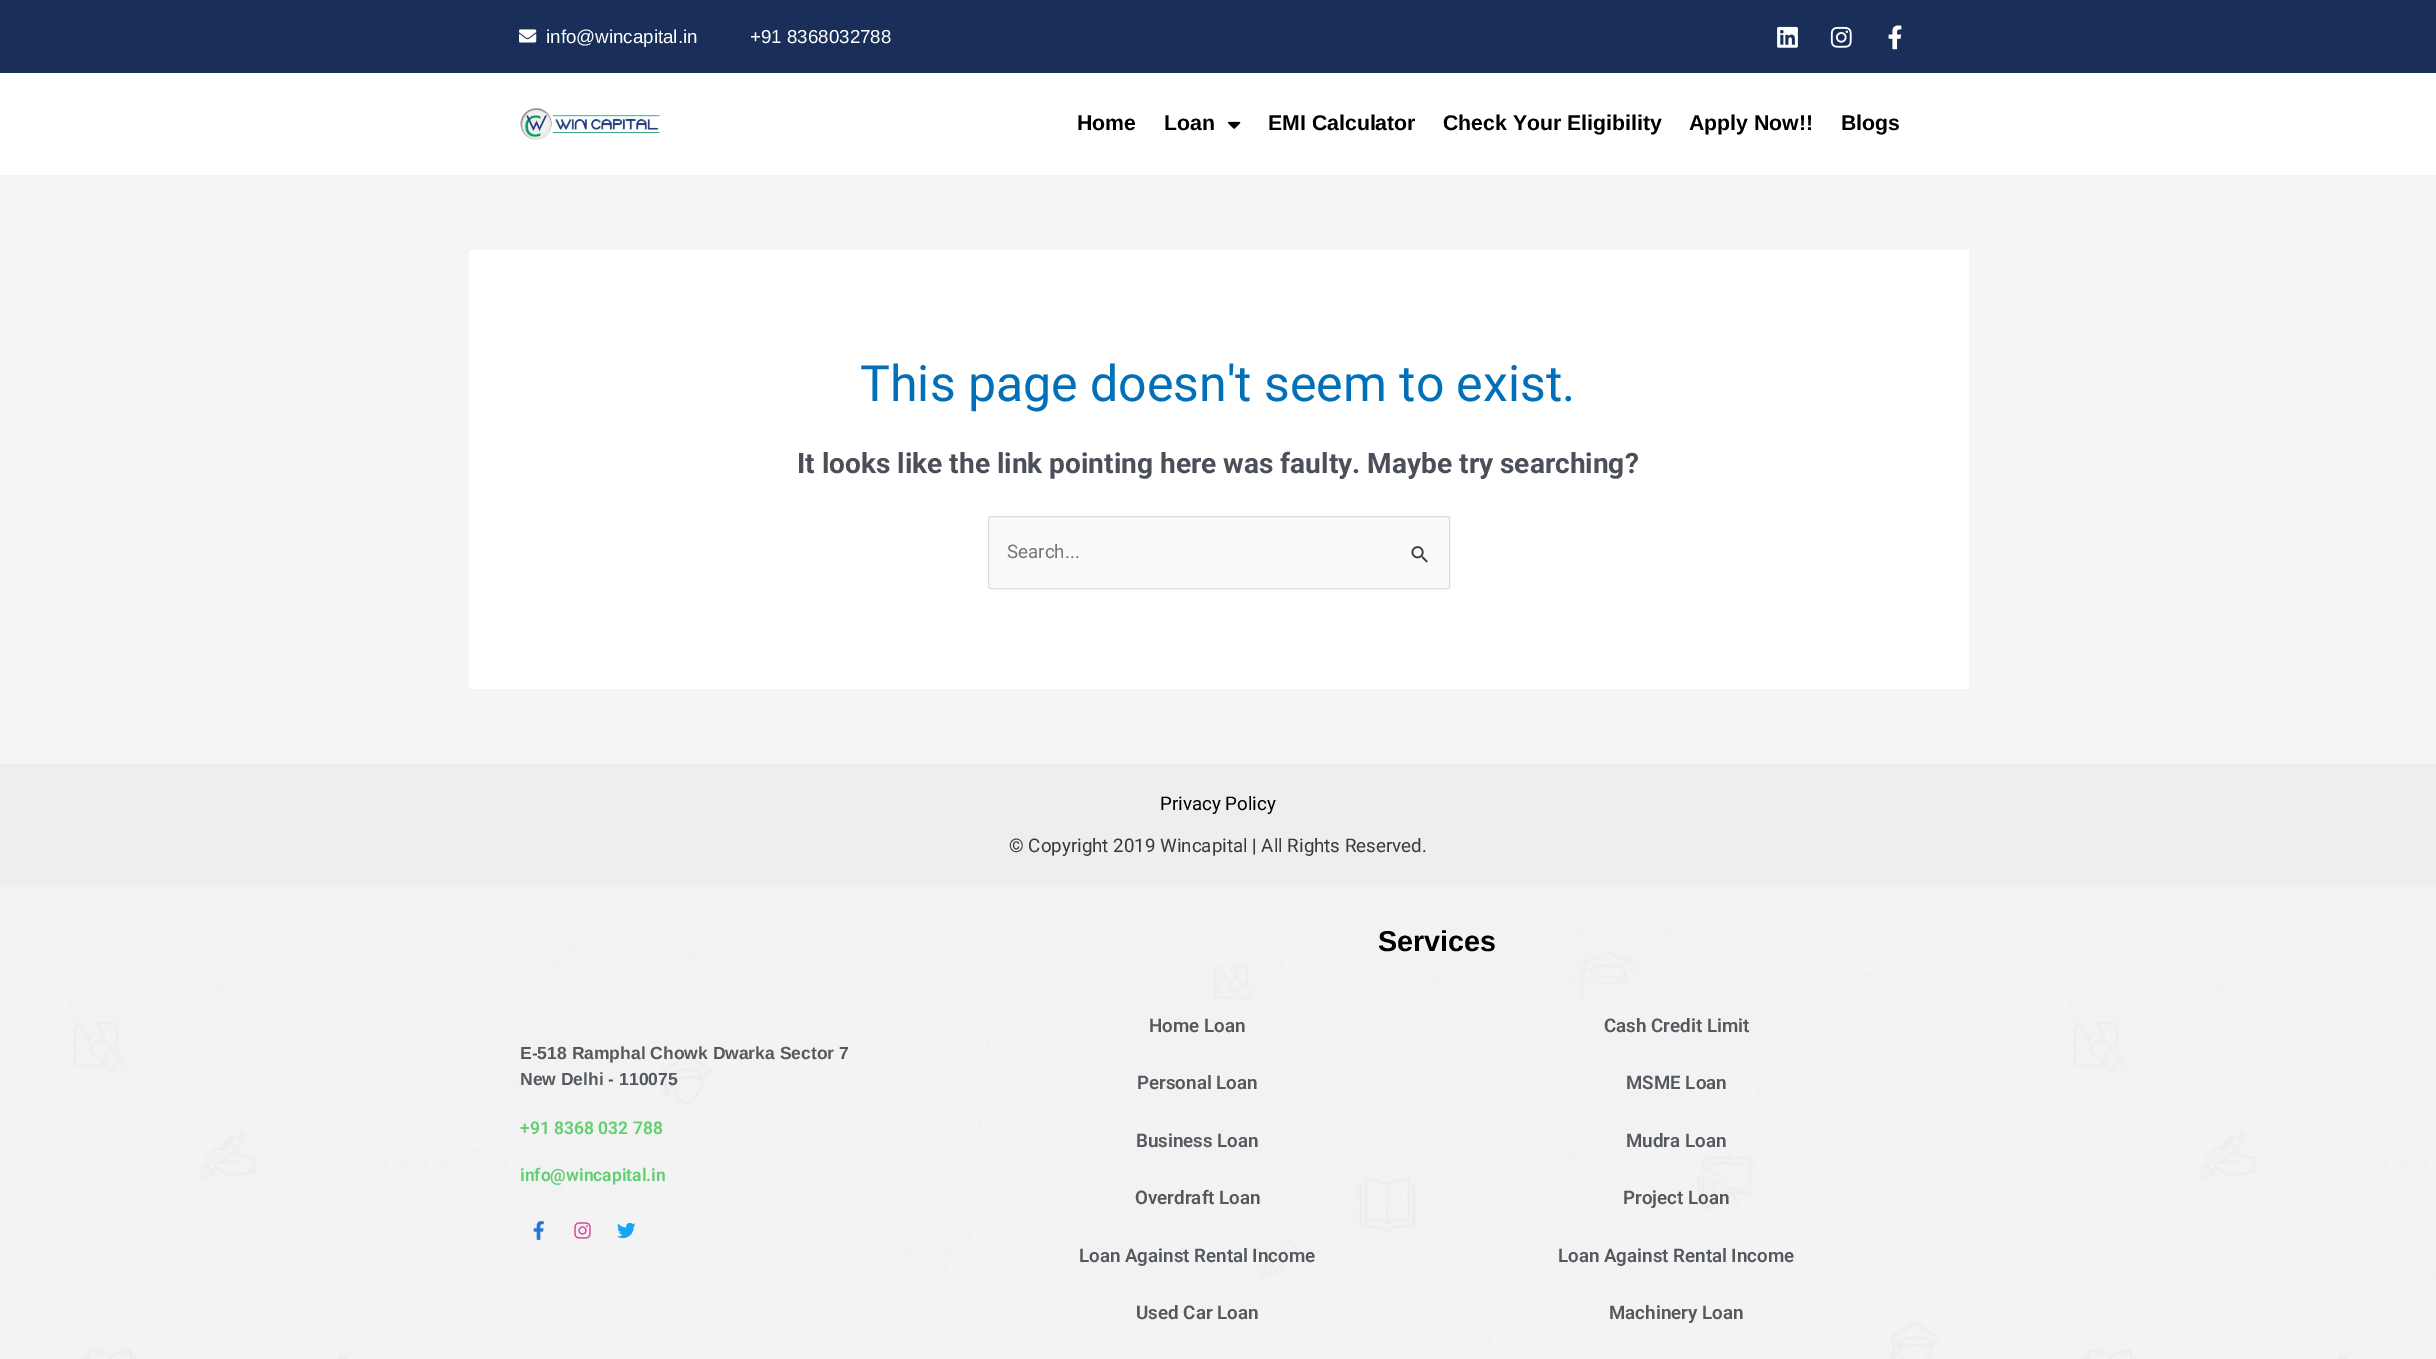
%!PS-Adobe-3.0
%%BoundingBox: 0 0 2436 1359
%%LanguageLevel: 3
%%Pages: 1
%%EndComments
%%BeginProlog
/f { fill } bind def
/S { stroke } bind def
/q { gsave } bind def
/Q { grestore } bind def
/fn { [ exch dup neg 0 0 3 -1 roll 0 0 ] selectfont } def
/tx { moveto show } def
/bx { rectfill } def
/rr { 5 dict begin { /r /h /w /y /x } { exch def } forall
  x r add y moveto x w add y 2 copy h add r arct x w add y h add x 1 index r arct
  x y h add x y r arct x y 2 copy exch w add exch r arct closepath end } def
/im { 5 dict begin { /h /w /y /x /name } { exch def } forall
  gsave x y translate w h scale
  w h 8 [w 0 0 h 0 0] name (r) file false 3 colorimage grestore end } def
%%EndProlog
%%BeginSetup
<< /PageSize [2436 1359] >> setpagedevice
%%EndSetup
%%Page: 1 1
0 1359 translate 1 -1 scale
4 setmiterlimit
0.961 setgray
0 0 2436 1359 bx
0.098 0.184 0.349 setrgbcolor
0 0 2436 73 bx
(image0.raw) 519 29 18 14 im
/LiberationSans-Regular 18.75 fn
1 setgray
(info@wincapital.in) 546 43 tx
(+91 8368032788) 750 43 tx
(image1.raw) 1777 26 21 22 im
(image2.raw) 1830 26 22 22 im
(image3.raw) 1888 25 14 25 im
0 73 2436 102 bx
(image4.raw) 520 107 140 33 im
/LiberationSans-Bold 21.25 fn
0 setgray
(Home) 1077 130 tx
(Loan) 1164 130 tx
(image5.raw) 1228 121 13 8 im
(EMI Calculator) 1268 130 tx
(Check Your Eligibility) 1443 130 tx
(Apply Now!!) 1689 130 tx
(Blogs) 1841 130 tx
1 setgray
469 250 1500 439 bx
/Roboto-Regular 50 fn
0.004 0.439 0.725 setrgbcolor
(This page doesn't seem to exist.) 860 401 tx
/Roboto-Bold 28.1 fn
0.294 0.31 0.345 setrgbcolor
(It looks like the link pointing here was faulty. Maybe try searching?) 797 473 tx
0.98 setgray
988.5 516.5 461 72 2 rr q f Q
0.867 setgray
S
/Roboto-Regular 18.75 fn
0.459 setgray
(Search...) 1007 558 tx
(image6.raw) 1411 546 17 17 im
0.933 setgray
0 764 2436 122 bx
0 setgray
(Privacy Policy) 1160 810 tx
0.227 setgray
(© Copyright 2019 Wincapital | All Rights Reserved.) 1009 852 tx
0.906 setgray
0 886 2436 473 bx
(image7.raw) 0 886 2436 473 im
/LiberationSans-Bold 17.5 fn
0.329 0.349 0.373 setrgbcolor
(E-518 Ramphal Chowk Dwarka Sector 7) 520 1059 tx
(New Delhi - 110075) 520 1085 tx
/Roboto-SemiBold 17.5 fn
0.38 0.808 0.439 setrgbcolor
(+91 8368 032 788) 520 1134 tx
(info@wincapital.in) 520 1181 tx
(image8.raw) 533 1221 11 19 im
(image9.raw) 574 1222 17 17 im
(image10.raw) 617 1222 19 17 im
/LiberationSans-Bold 28.75 fn
0 setgray
(Services) 1378 951 tx
/Roboto-SemiBold 18.75 fn
0.329 0.349 0.373 setrgbcolor
(Home Loan) 1149 1032 tx
(Personal Loan) 1137 1089 tx
(Business Loan) 1136 1147 tx
(Overdraft Loan) 1135 1204 tx
(Loan Against Rental Income) 1079 1262 tx
(Used Car Loan) 1136 1319 tx
(Cash Credit Limit) 1604 1032 tx
(MSME Loan) 1626 1089 tx
(Mudra Loan) 1626 1147 tx
(Project Loan) 1623 1204 tx
(Loan Against Rental Income) 1558 1262 tx
(Machinery Loan) 1609 1319 tx
showpage
%%EOF
